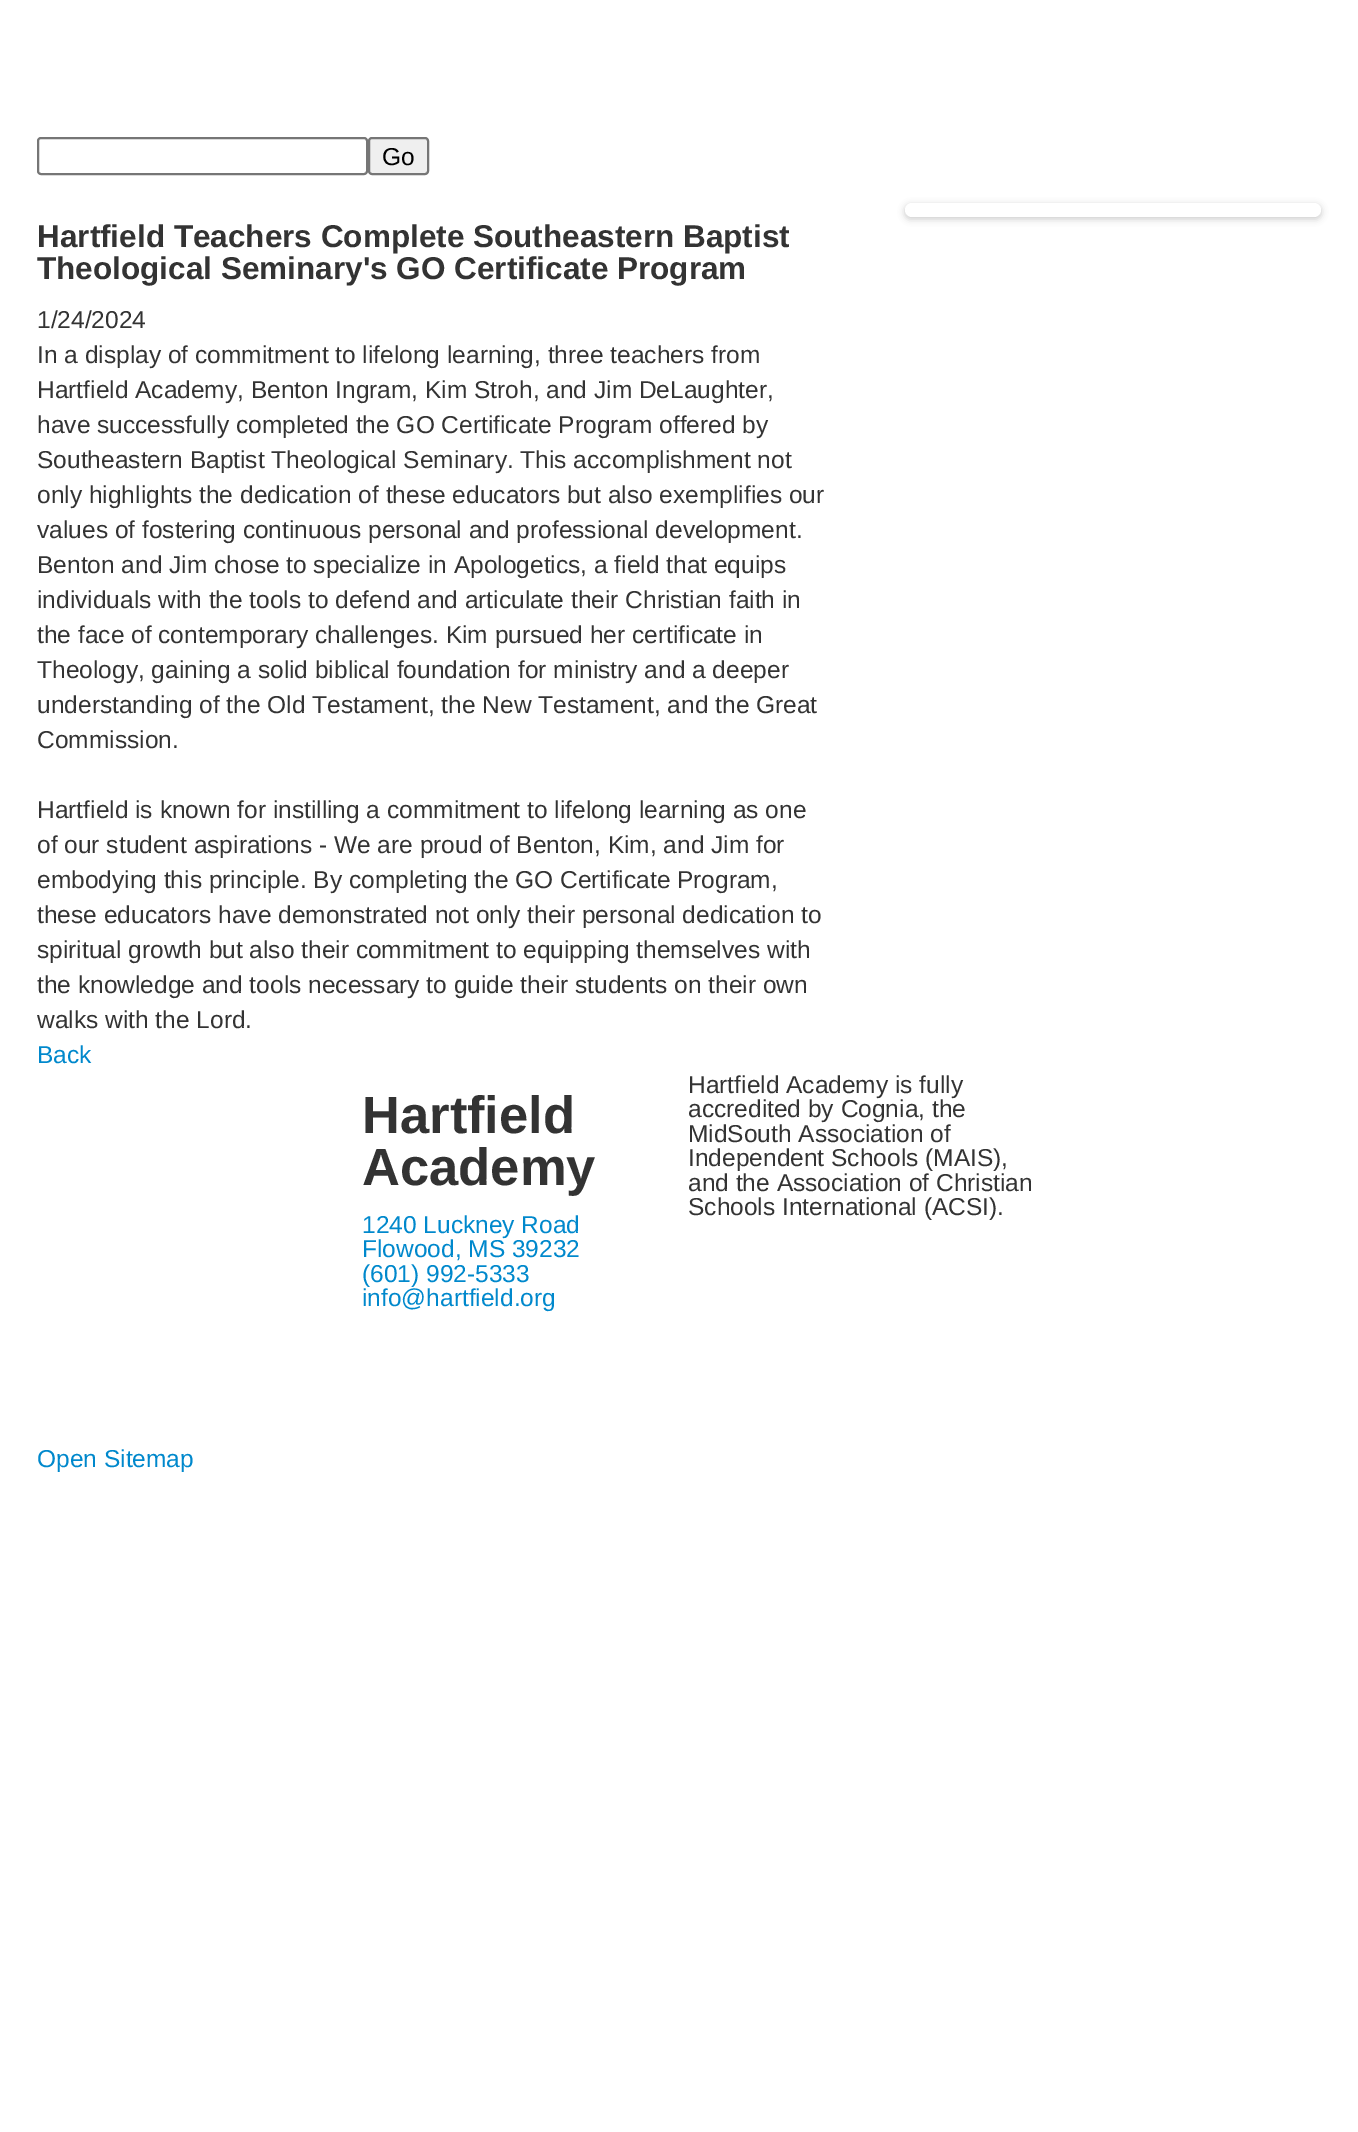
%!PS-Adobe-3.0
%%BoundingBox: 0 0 1358 2132
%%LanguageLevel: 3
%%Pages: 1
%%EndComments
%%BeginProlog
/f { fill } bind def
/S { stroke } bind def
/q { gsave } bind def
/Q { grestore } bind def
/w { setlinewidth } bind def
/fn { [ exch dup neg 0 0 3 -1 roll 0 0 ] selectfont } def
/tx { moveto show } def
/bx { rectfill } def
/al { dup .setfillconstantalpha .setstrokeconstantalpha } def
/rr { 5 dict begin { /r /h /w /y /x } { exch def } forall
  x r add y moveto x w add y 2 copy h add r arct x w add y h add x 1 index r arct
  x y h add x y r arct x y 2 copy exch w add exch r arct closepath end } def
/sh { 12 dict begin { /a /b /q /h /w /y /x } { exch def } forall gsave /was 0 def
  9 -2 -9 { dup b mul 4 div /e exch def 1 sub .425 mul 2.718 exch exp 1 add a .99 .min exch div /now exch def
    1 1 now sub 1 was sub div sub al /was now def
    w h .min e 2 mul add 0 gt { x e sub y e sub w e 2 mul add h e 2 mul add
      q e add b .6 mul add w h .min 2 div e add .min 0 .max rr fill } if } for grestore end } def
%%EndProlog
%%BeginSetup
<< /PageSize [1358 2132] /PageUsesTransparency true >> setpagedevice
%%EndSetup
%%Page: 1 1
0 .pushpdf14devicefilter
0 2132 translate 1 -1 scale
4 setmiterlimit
1 setgray
0 0 1358 2132 bx
0.463 setgray
2 w
38 138 329 36 3 rr S
0.937 setgray
369 138 59 36 3 rr q f Q
0.463 setgray
S
/LiberationSans-Regular 24.5 fn
0 setgray
(Go) 382 165 tx
905 205 416 14 7 3.5 0.2 sh
1 setgray
905 203 416 14 7 rr f
/LiberationSans-Bold 31.5 fn
0.2 setgray
(Hartfield Teachers Complete Southeastern Baptist) 37 247 tx
(Theological Seminary's GO Certificate Program) 37 279 tx
/LiberationSans-Regular 24.5 fn
(1/24/2024) 37 328 tx
(In a display of commitment to lifelong learning, three teachers from) 37 363 tx
(Hartfield Academy, Benton Ingram, Kim Stroh, and Jim DeLaughter,) 37 398 tx
(have successfully completed the GO Certificate Program offered by) 37 433 tx
(Southeastern Baptist Theological Seminary. This accomplishment not) 37 468 tx
(only highlights the dedication of these educators but also exemplifies our) 37 503 tx
(values of fostering continuous personal and professional development.) 37 538 tx
(Benton and Jim chose to specialize in Apologetics, a field that equips) 37 573 tx
(individuals with the tools to defend and articulate their Christian faith in) 37 608 tx
(the face of contemporary challenges. Kim pursued her certificate in) 37 643 tx
(Theology, gaining a solid biblical foundation for ministry and a deeper) 37 678 tx
(understanding of the Old Testament, the New Testament, and the Great) 37 713 tx
(Commission.) 37 748 tx
(Hartfield is known for instilling a commitment to lifelong learning as one) 37 818 tx
(of our student aspirations - We are proud of Benton, Kim, and Jim for) 37 853 tx
(embodying this principle. By completing the GO Certificate Program,) 37 888 tx
(these educators have demonstrated not only their personal dedication to) 37 923 tx
(spiritual growth but also their commitment to equipping themselves with) 37 958 tx
(the knowledge and tools necessary to guide their students on their own) 37 993 tx
(walks with the Lord.) 37 1028 tx
0 0.533 0.8 setrgbcolor
(Back) 37 1063 tx
/LiberationSans-Bold 52.5 fn
0.2 setgray
(Hartfield) 362 1133 tx
(Academy) 362 1185 tx
/LiberationSans-Regular 24.5 fn
0 0.533 0.8 setrgbcolor
(1240 Luckney Road) 362 1233 tx
(Flowood, MS 39232) 362 1257 tx
(\(601\) 992-5333) 362 1282 tx
(info@hartfield.org) 362 1306 tx
0.2 setgray
(Hartfield Academy is fully) 688 1093 tx
(accredited by Cognia, the) 688 1117 tx
(MidSouth Association of) 688 1142 tx
(Independent Schools \(MAIS\),) 688 1166 tx
(and the Association of Christian) 688 1191 tx
(Schools International \(ACSI\).) 688 1215 tx
0 0.533 0.8 setrgbcolor
(Open Sitemap) 37 1467 tx
.poppdf14devicefilter showpage
%%EOF
